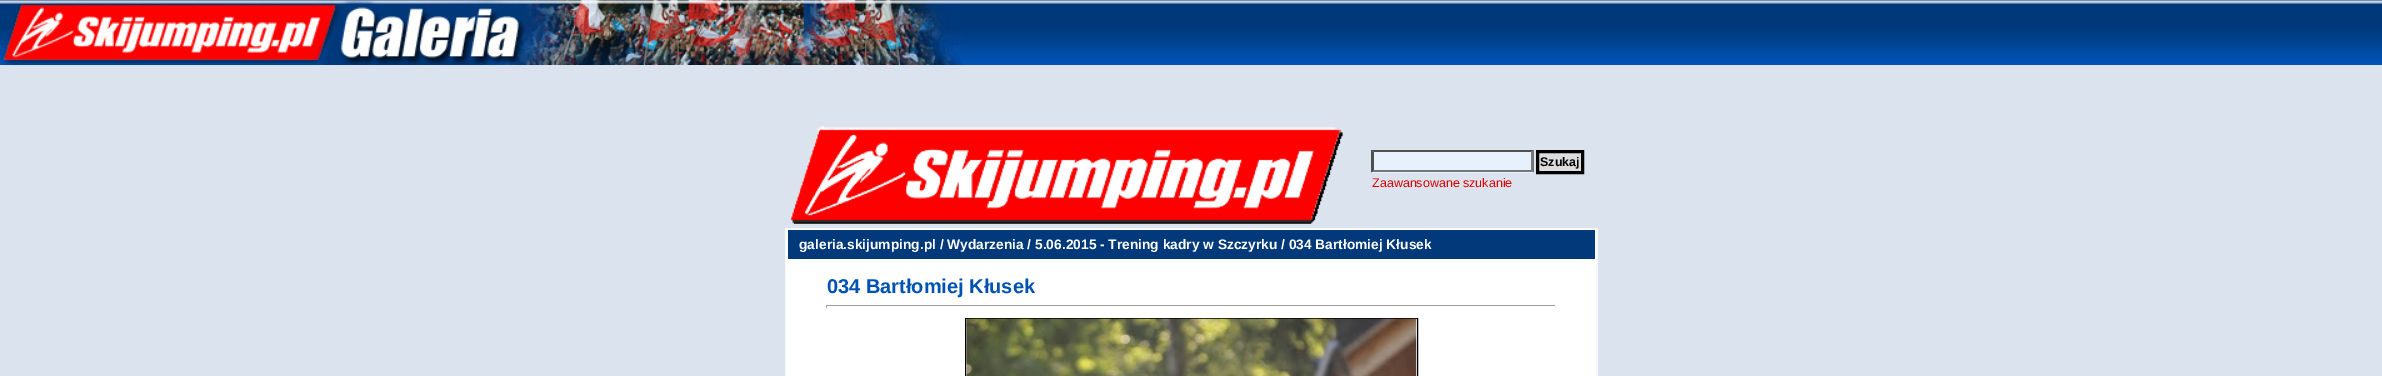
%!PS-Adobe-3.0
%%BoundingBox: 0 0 2382 376
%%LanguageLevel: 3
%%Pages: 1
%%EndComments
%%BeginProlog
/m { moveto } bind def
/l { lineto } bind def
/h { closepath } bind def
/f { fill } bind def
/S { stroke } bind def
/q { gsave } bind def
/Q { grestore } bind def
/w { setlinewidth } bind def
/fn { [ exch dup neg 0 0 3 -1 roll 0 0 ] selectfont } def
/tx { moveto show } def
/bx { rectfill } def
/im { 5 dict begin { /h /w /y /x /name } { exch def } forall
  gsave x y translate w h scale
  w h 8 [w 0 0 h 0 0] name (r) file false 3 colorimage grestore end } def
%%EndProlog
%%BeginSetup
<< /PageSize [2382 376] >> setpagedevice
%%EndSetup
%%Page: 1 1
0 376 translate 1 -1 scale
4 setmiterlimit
0.859 0.894 0.933 setrgbcolor
0 0 2382 376 bx
(image0.raw) 962 0 1420 65 im
(image1.raw) 0 0 963 65 im
(image2.raw) 790 126 553 98 im
0.906 0.945 0.996 setrgbcolor
1371 150 163 23 bx
0.31 setgray
1371 150 m 1534 150 l 1531 152 l 1374 152 l h f
0.463 setgray
1534 150 m 1534 172.5 l 1531 170 l 1531 152.5 l h f
1534 172 m 1371 172 l 1374 170 l 1531 170 l h f
0.31 setgray
1371 172.5 m 1371 150 l 1374 152.5 l 1374 170 l h f
0.867 setgray
1537.5 151.5 m 1582.5 151.5 l 1582.5 172.5 l 1537.5 172.5 l h q f Q
0 setgray
3 w
S
/LiberationSans-Bold 12.5 fn
(Szukaj) 1540 166 tx
/LiberationSans-Regular 12.5 fn
0.867 0 0 setrgbcolor
(Zaawansowane szukanie) 1372 187 tx
0.973 setgray
785 228 813 148 bx
1 setgray
786 229 810 147 bx
0.004 0.224 0.478 setrgbcolor
788 230 807 29 bx
/LiberationSans-Bold 13.75 fn
1 setgray
(galeria.skijumping.pl / Wydarzenia / 5.06.2015 - Trening kadry w Szczyrku / 034 Bartłomiej Kłusek) 799 249 tx
/LiberationSans-Bold 20 fn
0 0.322 0.698 setrgbcolor
(034 Bartłomiej Kłusek) 827 293 tx
0.624 setgray
826 305 730 1 bx
0.933 setgray
1555 305 1 3 bx
0.624 setgray
826 305 1 3 bx
0 setgray
1 w
965.5 318.5 452 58 rectstroke
(image3.raw) 966 318 451 58 im
showpage
%%EOF
